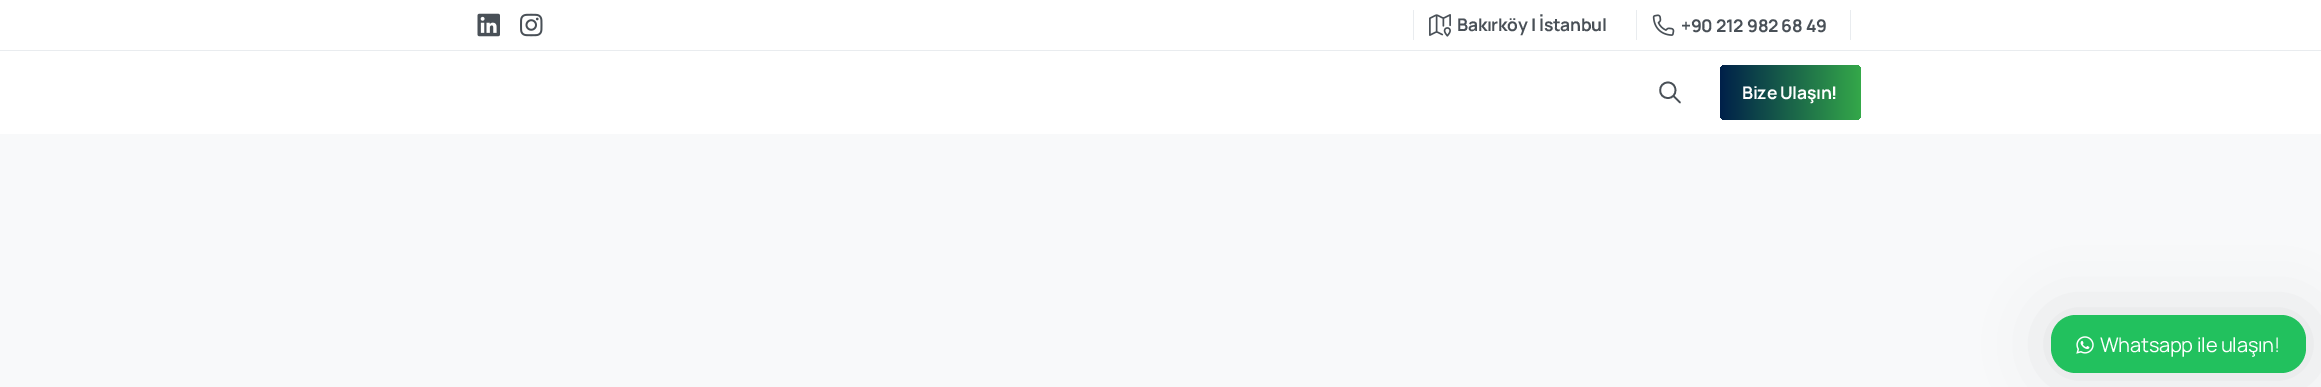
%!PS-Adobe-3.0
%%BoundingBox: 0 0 2321 387
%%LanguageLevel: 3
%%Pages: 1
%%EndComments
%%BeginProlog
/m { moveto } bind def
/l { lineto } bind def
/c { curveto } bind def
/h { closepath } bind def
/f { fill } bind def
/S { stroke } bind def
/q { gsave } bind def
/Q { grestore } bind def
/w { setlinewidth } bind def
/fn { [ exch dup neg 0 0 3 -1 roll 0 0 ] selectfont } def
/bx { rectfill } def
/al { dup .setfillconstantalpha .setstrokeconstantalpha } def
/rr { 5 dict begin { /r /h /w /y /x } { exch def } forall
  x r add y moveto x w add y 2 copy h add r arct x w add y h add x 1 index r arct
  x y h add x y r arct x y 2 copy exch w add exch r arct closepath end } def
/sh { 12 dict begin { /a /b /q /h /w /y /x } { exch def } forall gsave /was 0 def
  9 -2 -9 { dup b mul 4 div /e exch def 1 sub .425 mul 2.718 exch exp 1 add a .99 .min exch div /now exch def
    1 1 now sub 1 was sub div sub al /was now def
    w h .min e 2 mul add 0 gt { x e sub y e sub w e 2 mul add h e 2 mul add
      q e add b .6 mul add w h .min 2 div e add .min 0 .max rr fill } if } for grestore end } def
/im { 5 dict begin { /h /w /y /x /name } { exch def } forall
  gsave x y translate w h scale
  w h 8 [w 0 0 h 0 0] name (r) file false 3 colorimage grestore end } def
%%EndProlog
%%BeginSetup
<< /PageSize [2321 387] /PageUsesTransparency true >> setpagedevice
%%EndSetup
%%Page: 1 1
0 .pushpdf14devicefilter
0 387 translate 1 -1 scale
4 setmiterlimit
1 setgray
0 0 2321 387 bx
(image0.raw) 477 13 23 24 im
(image1.raw) 520 13 23 24 im
0.914 0.925 0.937 setrgbcolor
1413 10 1 30 bx
(image2.raw) 1429 14 22 23 im
/Manrope-Bold 17.5 fn
0.286 0.314 0.341 setrgbcolor
1457 31 m -0.25 0 (Bakırköy | İstanbul) ashow
0.914 0.925 0.937 setrgbcolor
1636 10 1 30 bx
(image3.raw) 1652 14 23 22 im
0.286 0.314 0.341 setrgbcolor
1681 32 m -0.25 0 (+90 212 982 68 49) ashow
0.914 0.925 0.937 setrgbcolor
1850 10 1 30 bx
0 50 2321 1 bx
0.286 0.314 0.341 setrgbcolor
1.7 w
1 setlinecap
1 setlinejoin
1668 98 m 1678 98 1678 82.5 1668 82.5 c 1657.5 82.5 1657.5 98 1668 98 c h 1673.5 96 m 1680 102.5 l S
q 1720 65 141 55 5 rr clip newpath
<< /ShadingType 2 /ColorSpace /DeviceRGB /Coords [1720 93 1861 93] /Extend [true true] /Function << /FunctionType 2 /Domain [0 1] /C0 [0 0.125 0.286] /C1 [0.204 0.659 0.286] /N 1 >> >> shfill Q
1 setgray
1742 99 m -0.25 0 (Bize Ulaşın!) ashow
0.973 0.976 0.98 setrgbcolor
0 134 2321 253 bx
0 setgray
2051 315 255 58 25 31 0.1 sh
0.133 0.757 0.369 setrgbcolor
2051 315 255 58 25 rr f
(image4.raw) 2076 336 18 18 im
/Manrope-Regular 20 fn
1 setgray
2100 352 m -0.25 0 (Whatsapp ile ulaşın!) ashow
.poppdf14devicefilter showpage
%%EOF
